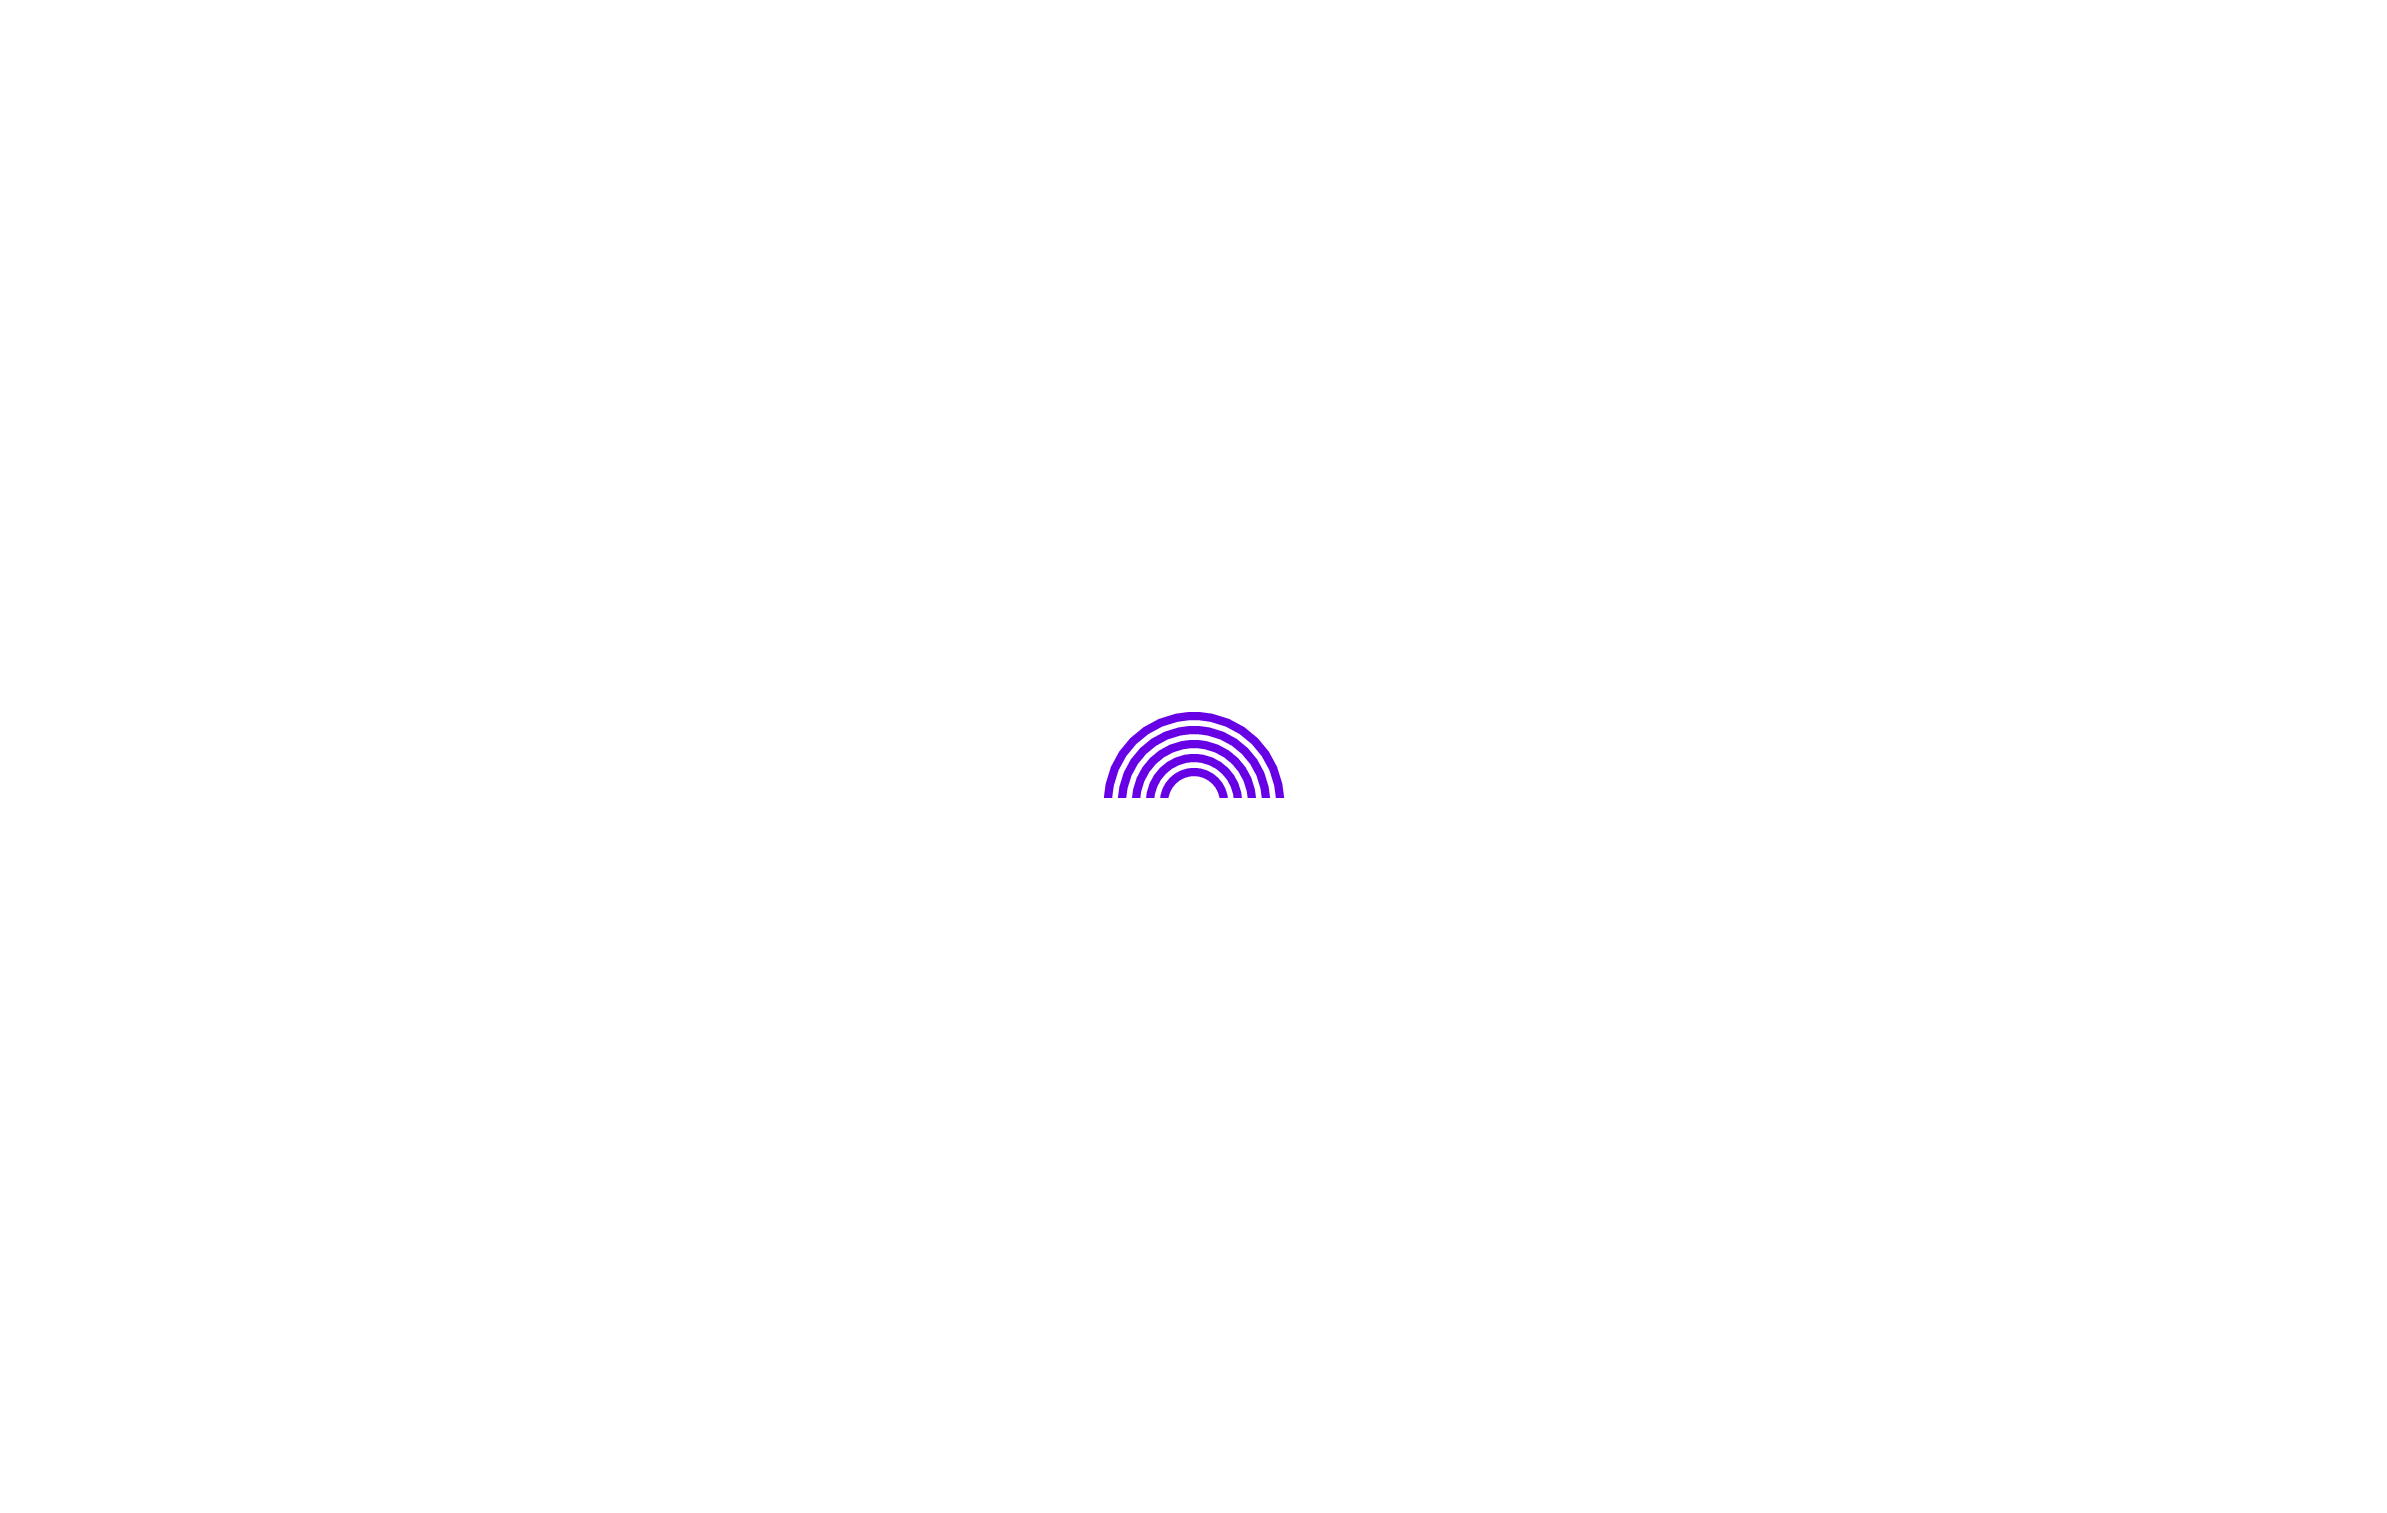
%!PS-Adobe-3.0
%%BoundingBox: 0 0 2387 1513
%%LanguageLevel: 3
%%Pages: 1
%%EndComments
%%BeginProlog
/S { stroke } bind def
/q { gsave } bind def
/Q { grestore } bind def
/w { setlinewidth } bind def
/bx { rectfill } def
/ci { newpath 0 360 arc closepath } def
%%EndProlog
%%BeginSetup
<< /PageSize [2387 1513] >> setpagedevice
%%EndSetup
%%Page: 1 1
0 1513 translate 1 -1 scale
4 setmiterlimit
1 setgray
0 0 2387 1513 bx
q
1094 698 200 100 rectclip
0.404 0 0.898 setrgbcolor
8 w
1194 802 86 ci S
1194 802 72 ci S
1194 802 58 ci S
1194 802 44 ci S
1194 802 30 ci S
Q
showpage
%%EOF
